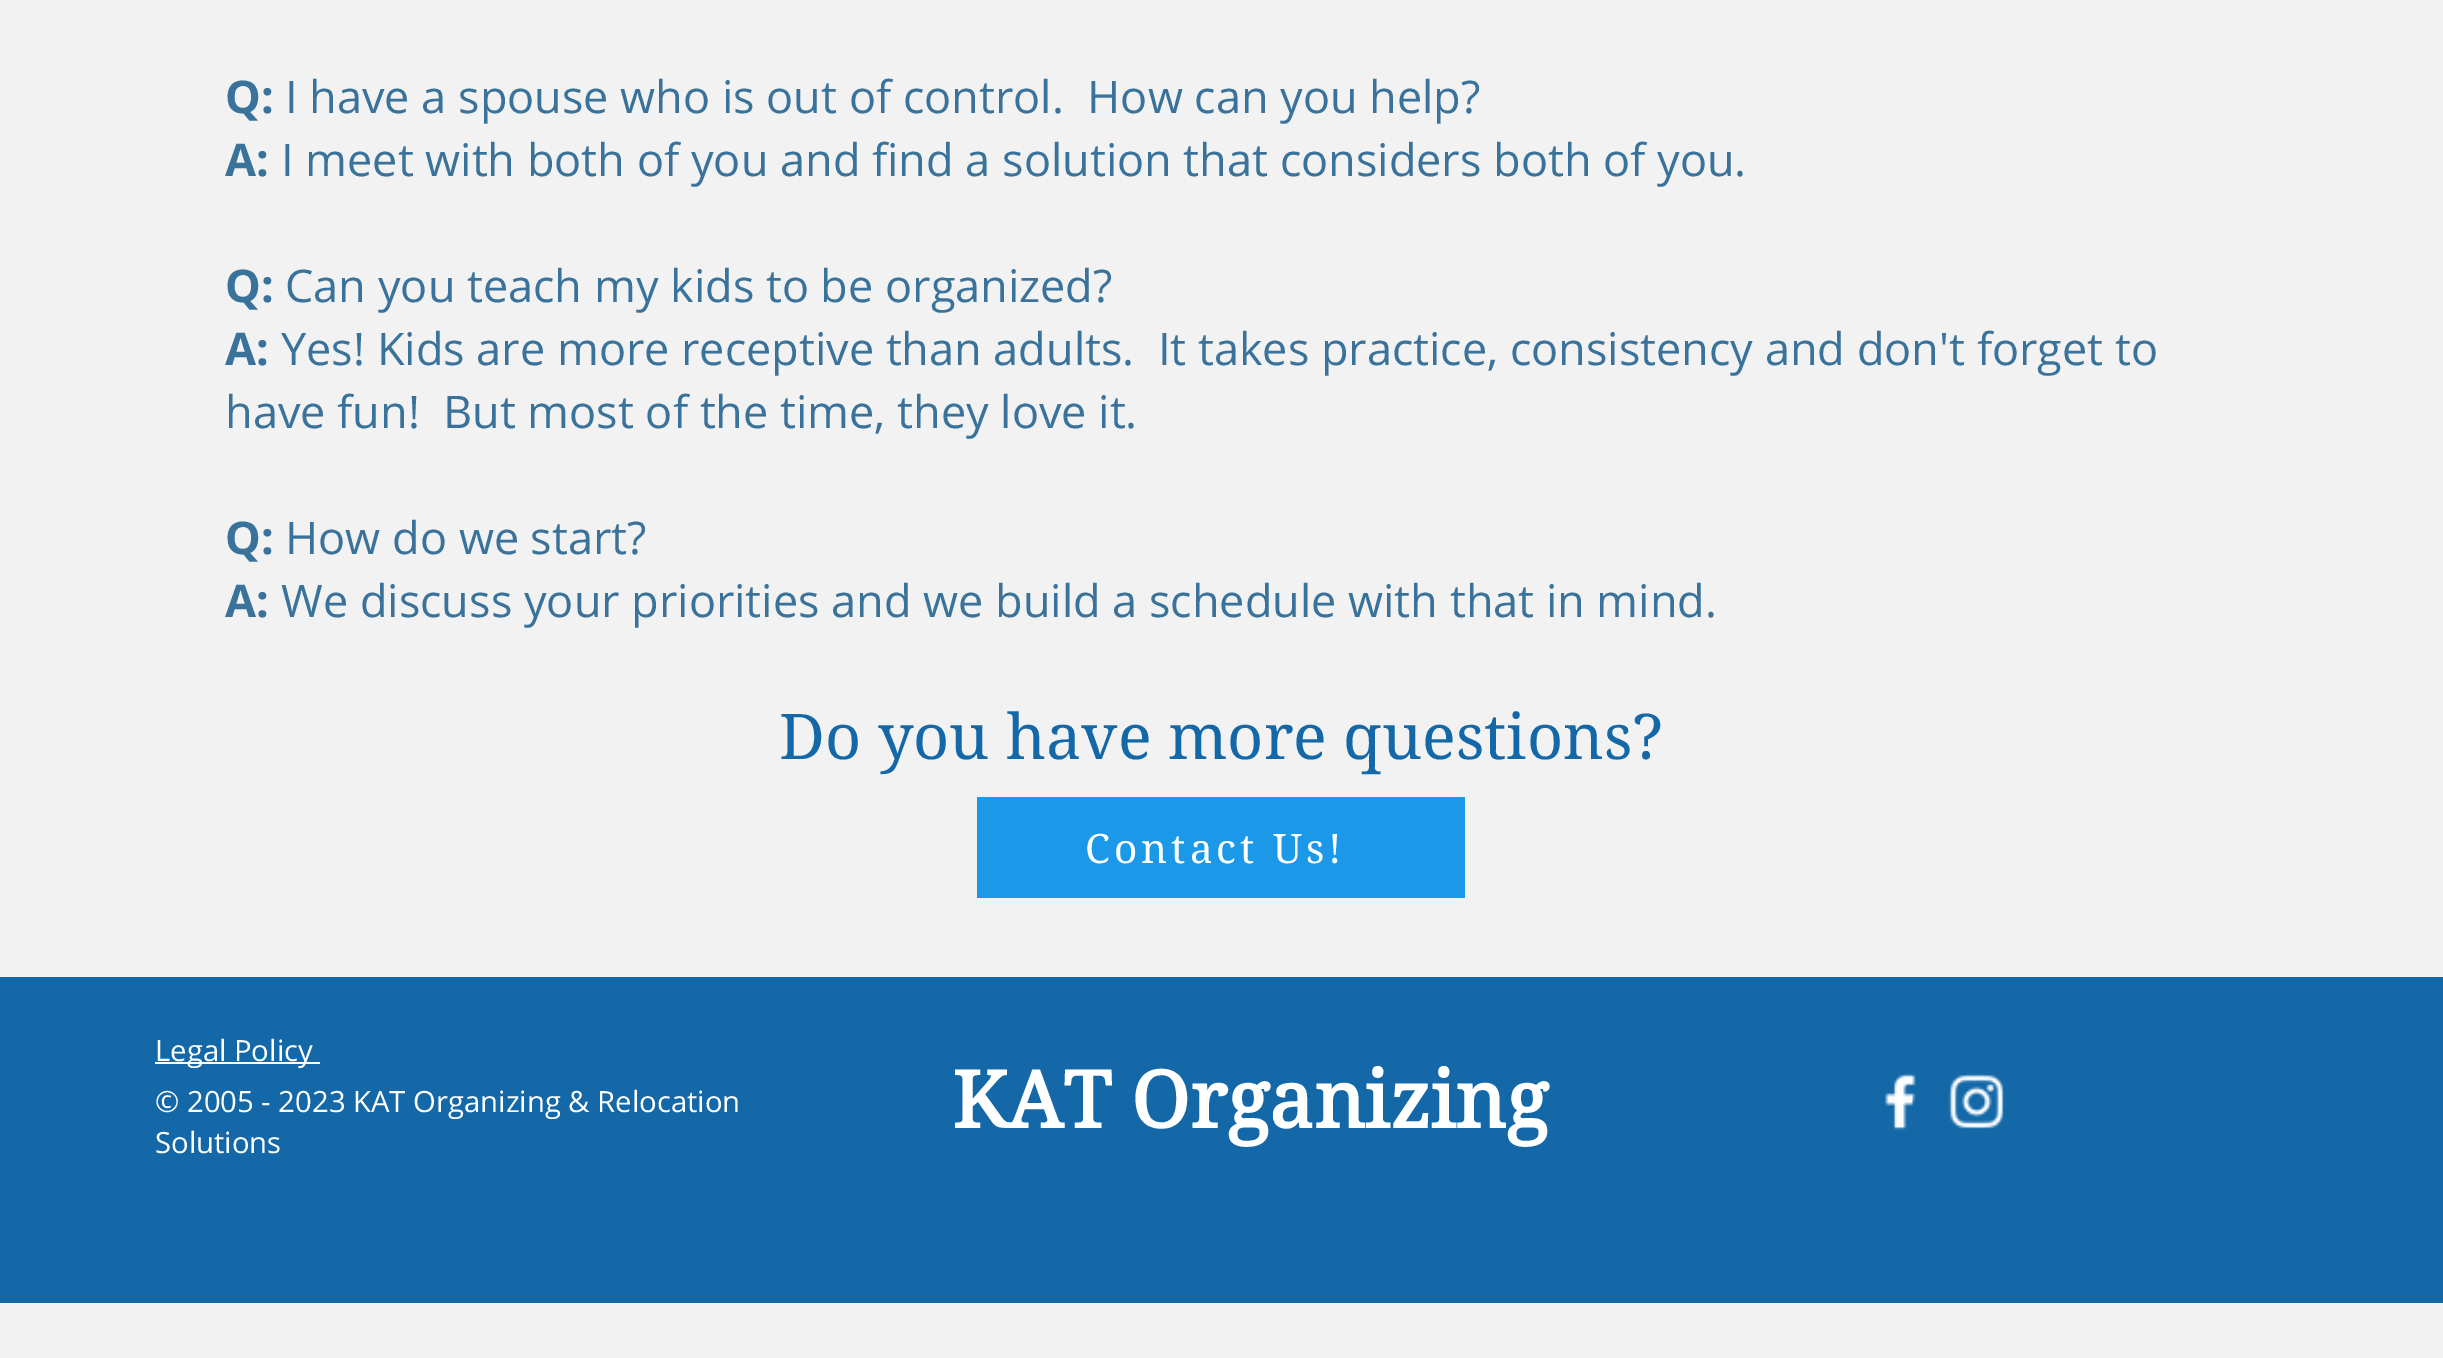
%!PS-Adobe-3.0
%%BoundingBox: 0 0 2443 1358
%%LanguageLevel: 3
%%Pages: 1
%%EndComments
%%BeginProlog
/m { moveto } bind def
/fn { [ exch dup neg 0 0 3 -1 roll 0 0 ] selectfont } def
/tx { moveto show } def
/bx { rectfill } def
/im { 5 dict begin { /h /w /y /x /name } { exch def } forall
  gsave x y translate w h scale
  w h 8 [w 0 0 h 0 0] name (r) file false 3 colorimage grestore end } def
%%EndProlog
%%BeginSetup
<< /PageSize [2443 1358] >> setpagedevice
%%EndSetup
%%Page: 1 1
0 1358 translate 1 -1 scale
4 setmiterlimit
0.949 setgray
0 0 2443 1358 bx
/OpenSans-Bold 45 fn
0.224 0.447 0.608 setrgbcolor
(Q:) 225 113 tx
/OpenSans-Regular 45 fn
(I have a spouse who is out of control.  How can you help?) 285 113 tx
/OpenSans-Bold 45 fn
(A:) 225 176 tx
/OpenSans-Regular 45 fn
(I meet with both of you and find a solution that considers both of you.) 281 176 tx
/OpenSans-Bold 45 fn
(Q:) 225 302 tx
/OpenSans-Regular 45 fn
(Can you teach my kids to be organized?) 285 302 tx
/OpenSans-Bold 45 fn
(A:) 225 365 tx
/OpenSans-Regular 45 fn
(Yes! Kids are more receptive than adults.  It takes practice, consistency and don't forget to) 281 365 tx
(have fun!  But most of the time, they love it.) 225 428 tx
/OpenSans-Bold 45 fn
(Q:) 225 554 tx
/OpenSans-Regular 45 fn
(How do we start?) 285 554 tx
/OpenSans-Bold 45 fn
(A:) 225 617 tx
/OpenSans-Regular 45 fn
(We discuss your priorities and we build a schedule with that in mind.) 281 617 tx
/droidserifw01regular-Regular 63 fn
0.078 0.408 0.659 setrgbcolor
(Do you have more questions?) 779 759 tx
0.106 0.6 0.91 setrgbcolor
977 797 488 101 bx
/droidserifw01regular-Regular 40.5 fn
1 setgray
1085 863 m 4 0 (Contact Us!) ashow
0.078 0.408 0.659 setrgbcolor
0 977 2443 326 bx
1 setgray
155 1062 165 2 bx
/OpenSans-Regular 29.25 fn
(Legal Policy) 155 1061 tx
(© 2005 - 2023 KAT Organizing & Relocation) 155 1112 tx
(Solutions) 155 1153 tx
/droidserifw01regular-Bold 78.75 fn
(KAT Organizing) 952 1128 tx
(image0.raw) 1885 1073 31 58 im
(image1.raw) 1948 1073 56 56 im
showpage
%%EOF
